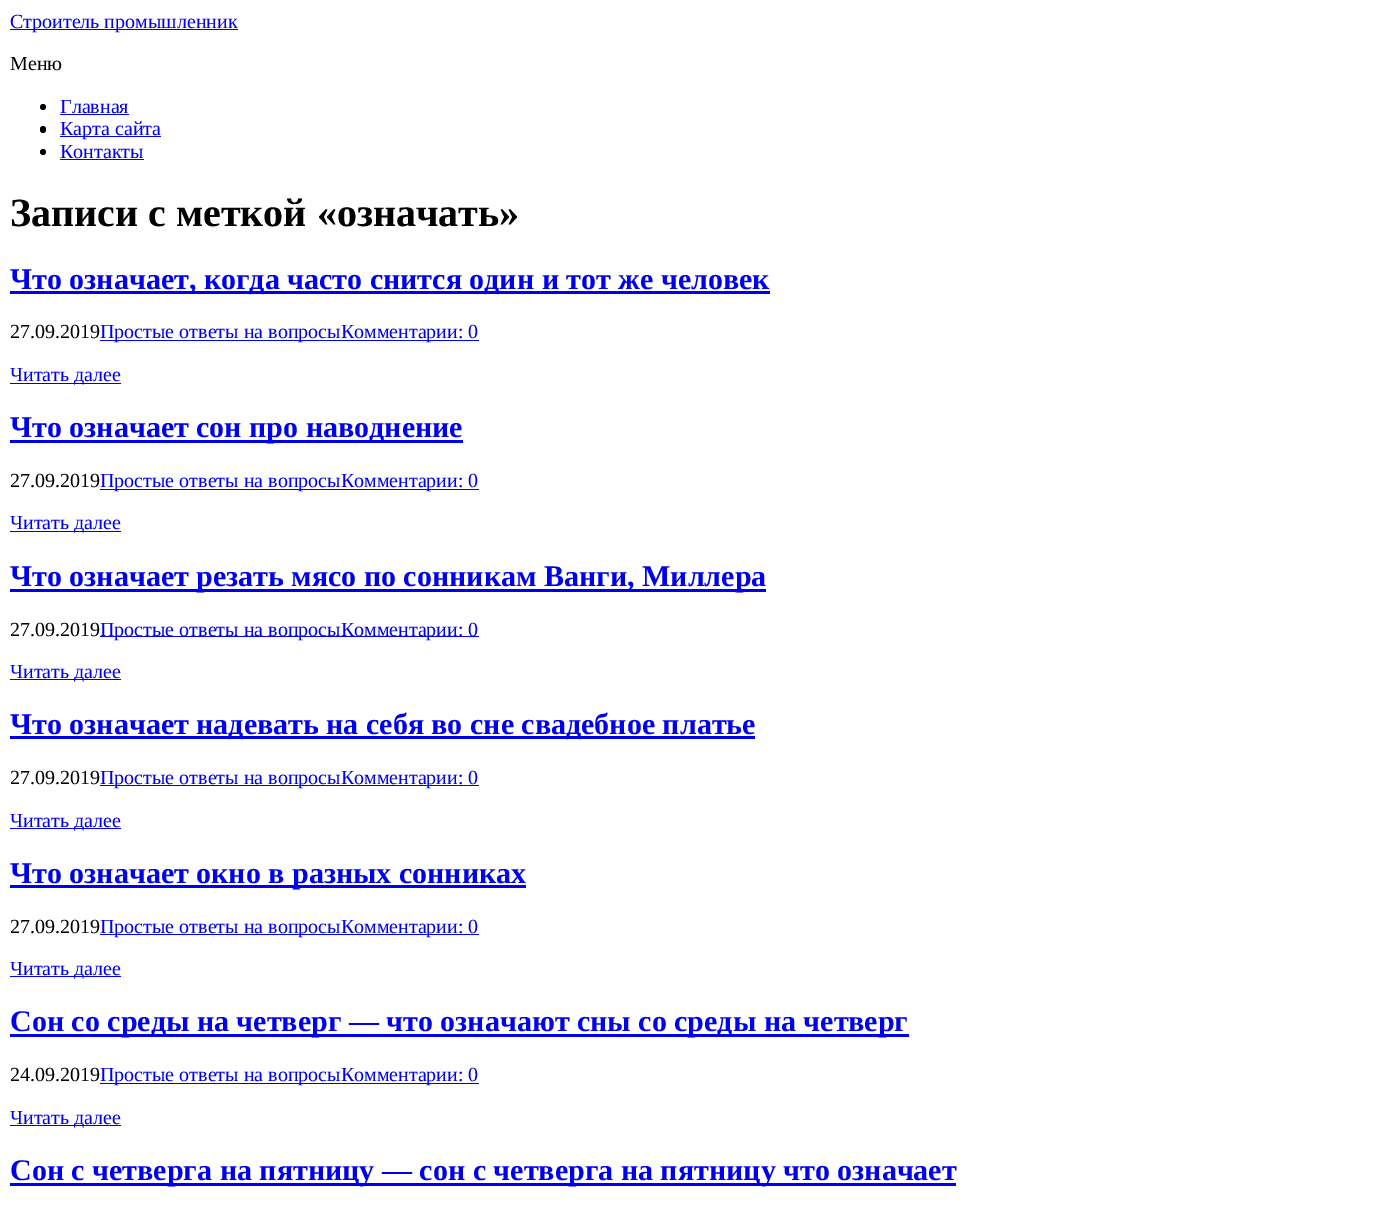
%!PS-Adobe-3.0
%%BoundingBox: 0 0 1400 1225
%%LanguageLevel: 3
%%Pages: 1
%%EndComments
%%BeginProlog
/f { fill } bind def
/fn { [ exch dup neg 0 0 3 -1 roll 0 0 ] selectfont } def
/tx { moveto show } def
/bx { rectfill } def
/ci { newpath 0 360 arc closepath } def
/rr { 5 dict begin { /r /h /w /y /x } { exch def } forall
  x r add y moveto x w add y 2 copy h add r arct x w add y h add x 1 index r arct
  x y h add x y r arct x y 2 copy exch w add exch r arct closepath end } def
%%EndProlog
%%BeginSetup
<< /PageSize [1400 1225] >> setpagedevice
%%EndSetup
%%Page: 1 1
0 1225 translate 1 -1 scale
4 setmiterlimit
1 setgray
0 0 1400 1225 bx
0 0 0.933 setrgbcolor
10 29 228 1 bx
/LiberationSerif-Regular 20 fn
(Строитель промышленник) 10 28 tx
0 setgray
(Меню) 10 70 tx
43 107 3 ci f
0 0 0.933 setrgbcolor
(Главная) 60 113 tx
60 114 69 1 bx
0 setgray
40 126 6 7 3 rr f
0 0 0.933 setrgbcolor
60 136 101 1 bx
(Карта сайта) 60 135 tx
0 setgray
43 152 3 ci f
0 0 0.933 setrgbcolor
(Контакты) 60 158 tx
60 159 84 1 bx
/LiberationSerif-Bold 40 fn
0 setgray
(Записи с меткой «означать») 10 226 tx
0 0 0.933 setrgbcolor
10 291 760 3 bx
/LiberationSerif-Bold 30 fn
(Что означает, когда часто снится один и тот же человек) 10 289 tx
/LiberationSerif-Regular 20 fn
0 setgray
(27.09.2019) 10 338 tx
0 0 0.933 setrgbcolor
100 340 379 1 bx
(Простые ответы на вопросыКомментарии: 0) 100 338 tx
10 383 111 1 bx
(Читать далее) 10 381 tx
10 440 453 3 bx
/LiberationSerif-Bold 30 fn
(Что означает сон про наводнение) 10 437 tx
/LiberationSerif-Regular 20 fn
0 setgray
(27.09.2019) 10 487 tx
0 0 0.933 setrgbcolor
100 489 379 1 bx
(Простые ответы на вопросыКомментарии: 0) 100 487 tx
10 531 111 1 bx
(Читать далее) 10 529 tx
10 589 756 3 bx
/LiberationSerif-Bold 30 fn
(Что означает резать мясо по сонникам Ванги, Миллера) 10 586 tx
/LiberationSerif-Regular 20 fn
0 setgray
(27.09.2019) 10 636 tx
0 0 0.933 setrgbcolor
100 636 379 1 bx
(Простые ответы на вопросыКомментарии: 0) 100 636 tx
10 679 111 1 bx
(Читать далее) 10 678 tx
10 736 745 3 bx
/LiberationSerif-Bold 30 fn
(Что означает надевать на себя во сне свадебное платье) 10 734 tx
/LiberationSerif-Regular 20 fn
0 setgray
(27.09.2019) 10 784 tx
0 0 0.933 setrgbcolor
100 785 379 1 bx
(Простые ответы на вопросыКомментарии: 0) 100 784 tx
10 828 111 1 bx
(Читать далее) 10 827 tx
10 885 516 3 bx
/LiberationSerif-Bold 30 fn
(Что означает окно в разных сонниках) 10 883 tx
/LiberationSerif-Regular 20 fn
0 setgray
(27.09.2019) 10 933 tx
0 0 0.933 setrgbcolor
100 934 379 1 bx
(Простые ответы на вопросыКомментарии: 0) 100 933 tx
10 976 111 1 bx
(Читать далее) 10 975 tx
10 1034 899 3 bx
/LiberationSerif-Bold 30 fn
(Сон со среды на четверг — что означают сны со среды на четверг) 10 1031 tx
/LiberationSerif-Regular 20 fn
0 setgray
(24.09.2019) 10 1081 tx
0 0 0.933 setrgbcolor
100 1083 379 1 bx
(Простые ответы на вопросыКомментарии: 0) 100 1081 tx
10 1125 111 1 bx
(Читать далее) 10 1124 tx
10 1183 946 3 bx
/LiberationSerif-Bold 30 fn
(Сон с четверга на пятницу — сон с четверга на пятницу что означает) 10 1180 tx
showpage
%%EOF
